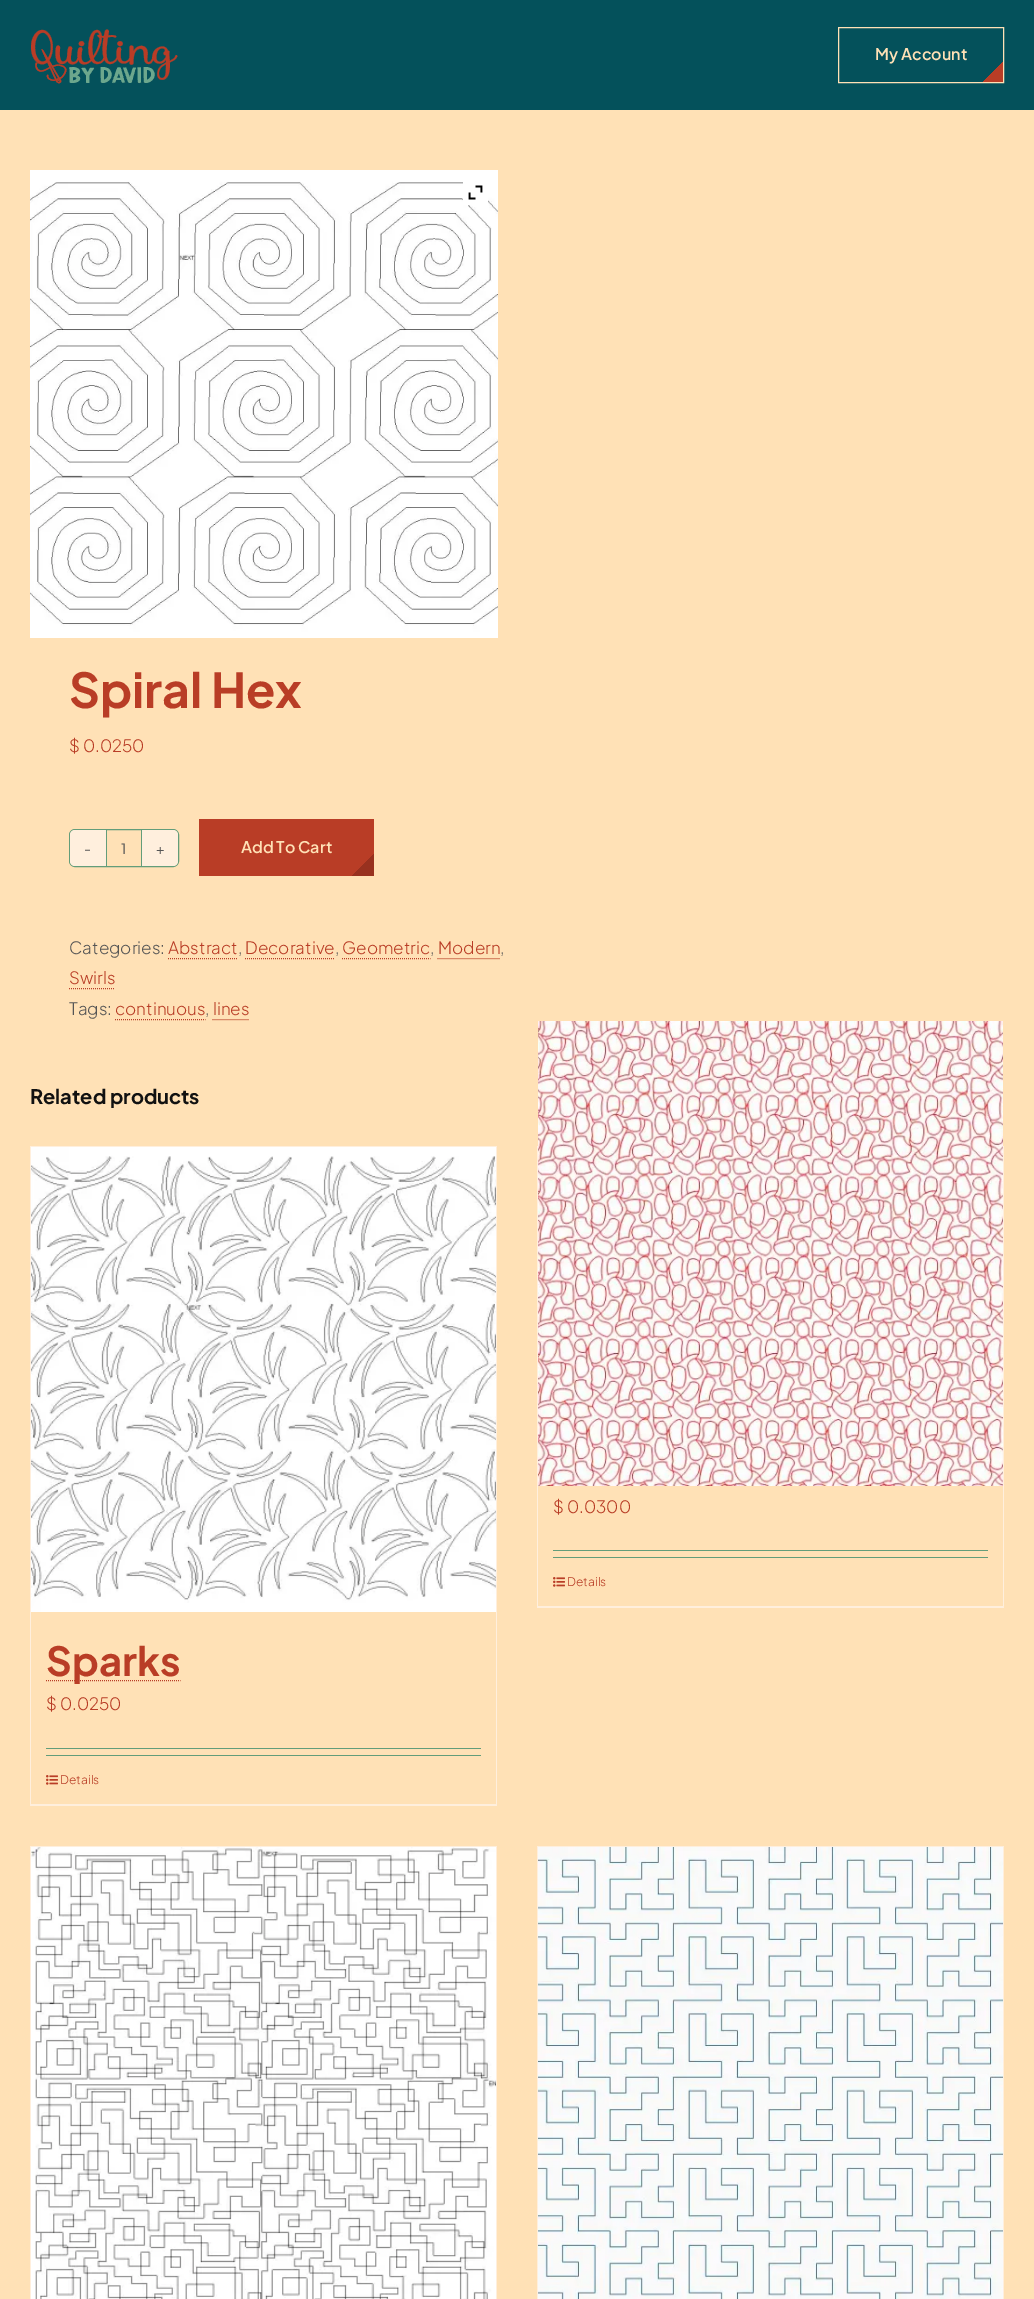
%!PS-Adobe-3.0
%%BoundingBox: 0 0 1034 2299
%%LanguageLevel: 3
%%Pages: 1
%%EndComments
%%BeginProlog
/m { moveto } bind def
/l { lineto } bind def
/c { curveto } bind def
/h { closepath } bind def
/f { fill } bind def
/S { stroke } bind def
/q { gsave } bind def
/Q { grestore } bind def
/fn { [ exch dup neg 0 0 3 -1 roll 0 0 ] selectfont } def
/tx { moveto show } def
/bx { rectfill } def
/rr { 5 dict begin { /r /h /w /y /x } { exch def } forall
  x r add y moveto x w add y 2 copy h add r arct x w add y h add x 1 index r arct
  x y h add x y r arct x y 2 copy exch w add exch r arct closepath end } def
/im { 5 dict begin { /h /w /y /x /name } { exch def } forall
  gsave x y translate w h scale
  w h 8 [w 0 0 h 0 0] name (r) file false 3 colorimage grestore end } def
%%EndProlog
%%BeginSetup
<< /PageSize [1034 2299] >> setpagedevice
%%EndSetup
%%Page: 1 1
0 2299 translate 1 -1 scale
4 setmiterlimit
1 0.882 0.714 setrgbcolor
0 0 1034 2299 bx
0.016 0.318 0.357 setrgbcolor
0 0 1034 110 bx
(image0.raw) 31 29 147 55 im
q 983 62 m 1003 62 l 1003 82 l 983 82 l h clip newpath
<< /ShadingType 2 /ColorSpace /DeviceRGB /Coords [867 0.5 976 110] /Extend [true true] /Function << /FunctionType 3 /Domain [0 1] /Functions [<< /FunctionType 2 /Domain [0 1] /C0 [0.016 0.318 0.357] /C1 [0.016 0.318 0.357] /N 1 >> << /FunctionType 2 /Domain [0 1] /C0 [0.725 0.239 0.149] /C1 [0.725 0.239 0.149] /N 1 >>] /Bounds [0.9] /Encode [0 1 0 1] >> >> shfill Q
1 0.882 0.714 setrgbcolor
838.5 27.5 165 55 rectstroke
/PlusJakartaSans-SemiBold 16 fn
(My Account) 875 60 tx
(image1.raw) 30 170 468 468 im
1 setgray
463 182 25 23 bx
(image2.raw) 468 185 15 15 im
/PlusJakartaSans-Bold 48 fn
0.725 0.239 0.149 setrgbcolor
(Spiral Hex) 69 708 tx
/PlusJakartaSans-Light 17 fn
($ 0.0250) 69 752 tx
0.388 0.616 0.478 setrgbcolor
69.5 829.5 109 37 5.5 rr S
1 0.937 0.867 setrgbcolor
75 830 m 106 830 l 106 866 l 75 866 l 72 866 70 864 70 861 c 70 835 l 70 832 72 830 75 830 c h f
/PlusJakartaSans-Regular 14 fn
0.333 setgray
(-) 84 854 tx
0.388 0.616 0.478 setrgbcolor
141 830 1 36 bx
106 830 1 36 bx
0.333 setgray
(1) 121 854 tx
1 0.937 0.867 setrgbcolor
142 830 m 173 830 l 176 830 178 832 178 835 c 178 861 l 178 864 176 866 173 866 c 142 866 l h f
0.333 setgray
(+) 156 854 tx
q 199 819 m 374 819 l 374 876 l 199 876 l h clip newpath
<< /ShadingType 2 /ColorSpace /DeviceRGB /Coords [229 790 345 906] /Extend [true true] /Function << /FunctionType 3 /Domain [0 1] /Functions [<< /FunctionType 2 /Domain [0 1] /C0 [0.725 0.239 0.149] /C1 [0.725 0.239 0.149] /N 1 >> << /FunctionType 2 /Domain [0 1] /C0 [0.596 0.192 0.122] /C1 [0.596 0.192 0.122] /N 1 >>] /Bounds [0.9] /Encode [0 1 0 1] >> >> shfill Q
/PlusJakartaSans-SemiBold 16 fn
1 0.882 0.714 setrgbcolor
(Add To Cart) 241 853 tx
/PlusJakartaSans-Light 17 fn
0.333 setgray
(Categories:) 69 954 tx
0.725 0.239 0.149 setrgbcolor
(Abstract) 168 954 tx
[1 1] 0 setdash
168 958.5 m 237.5 958.5 l S
0.333 setgray
(,) 238 954 tx
0.725 0.239 0.149 setrgbcolor
(Decorative) 245 954 tx
245 958.5 m 335 958.5 l S
0.333 setgray
(,) 335 954 tx
0.725 0.239 0.149 setrgbcolor
(Geometric) 342 954 tx
342 958.5 m 430.5 958.5 l S
0.333 setgray
(,) 430 954 tx
0.725 0.239 0.149 setrgbcolor
(Modern) 438 954 tx
437.5 958.5 m 500 958.5 l S
0.333 setgray
(,) 500 954 tx
0.725 0.239 0.149 setrgbcolor
(Swirls) 69 984 tx
69 988.5 m 115 988.5 l S
0.333 setgray
(Tags:) 69 1015 tx
0.725 0.239 0.149 setrgbcolor
(continuous) 115 1015 tx
115 1019.5 m 205.5 1019.5 l S
0.333 setgray
(,) 205 1015 tx
0.725 0.239 0.149 setrgbcolor
(lines) 213 1015 tx
212.5 1019.5 m 249 1019.5 l S
/PlusJakartaSans-Bold 20 fn
0.067 setgray
(Related products) 30 1104 tx
1 0.937 0.867 setrgbcolor
1003 1146 1 462 bx
537 1606 467 2 bx
537 1146 1 462 bx
(image3.raw) 538 1021 465 465 im
/PlusJakartaSans-Light 17 fn
0.725 0.239 0.149 setrgbcolor
($ 0.0300) 553 1513 tx
0.388 0.616 0.478 setrgbcolor
553 1550 435 1 bx
553 1557 435 1 bx
(image4.raw) 553 1577 12 10 im
/PlusJakartaSans-Light 12 fn
0.725 0.239 0.149 setrgbcolor
(Details) 567 1586 tx
1 0.937 0.867 setrgbcolor
30 1146 467 1 bx
496 1146 1 660 bx
30 1804 467 2 bx
30 1146 1 660 bx
(image5.raw) 31 1147 465 465 im
0.725 0.239 0.149 setrgbcolor
46 1680.5 m 180.5 1680.5 l S
/PlusJakartaSans-Bold 40 fn
(Sparks) 46 1676 tx
/PlusJakartaSans-Light 17 fn
($ 0.0250) 46 1710 tx
0.388 0.616 0.478 setrgbcolor
46 1748 435 1 bx
46 1755 435 1 bx
(image4.raw) 46 1775 12 10 im
/PlusJakartaSans-Light 12 fn
0.725 0.239 0.149 setrgbcolor
(Details) 60 1784 tx
1 0.937 0.867 setrgbcolor
30 1846 467 1 bx
496 1846 1 453 bx
30 1846 1 453 bx
(image6.raw) 31 1847 465 452 im
537 1846 467 1 bx
1003 1846 1 453 bx
537 1846 1 453 bx
(image7.raw) 538 1847 465 452 im
showpage
%%EOF
